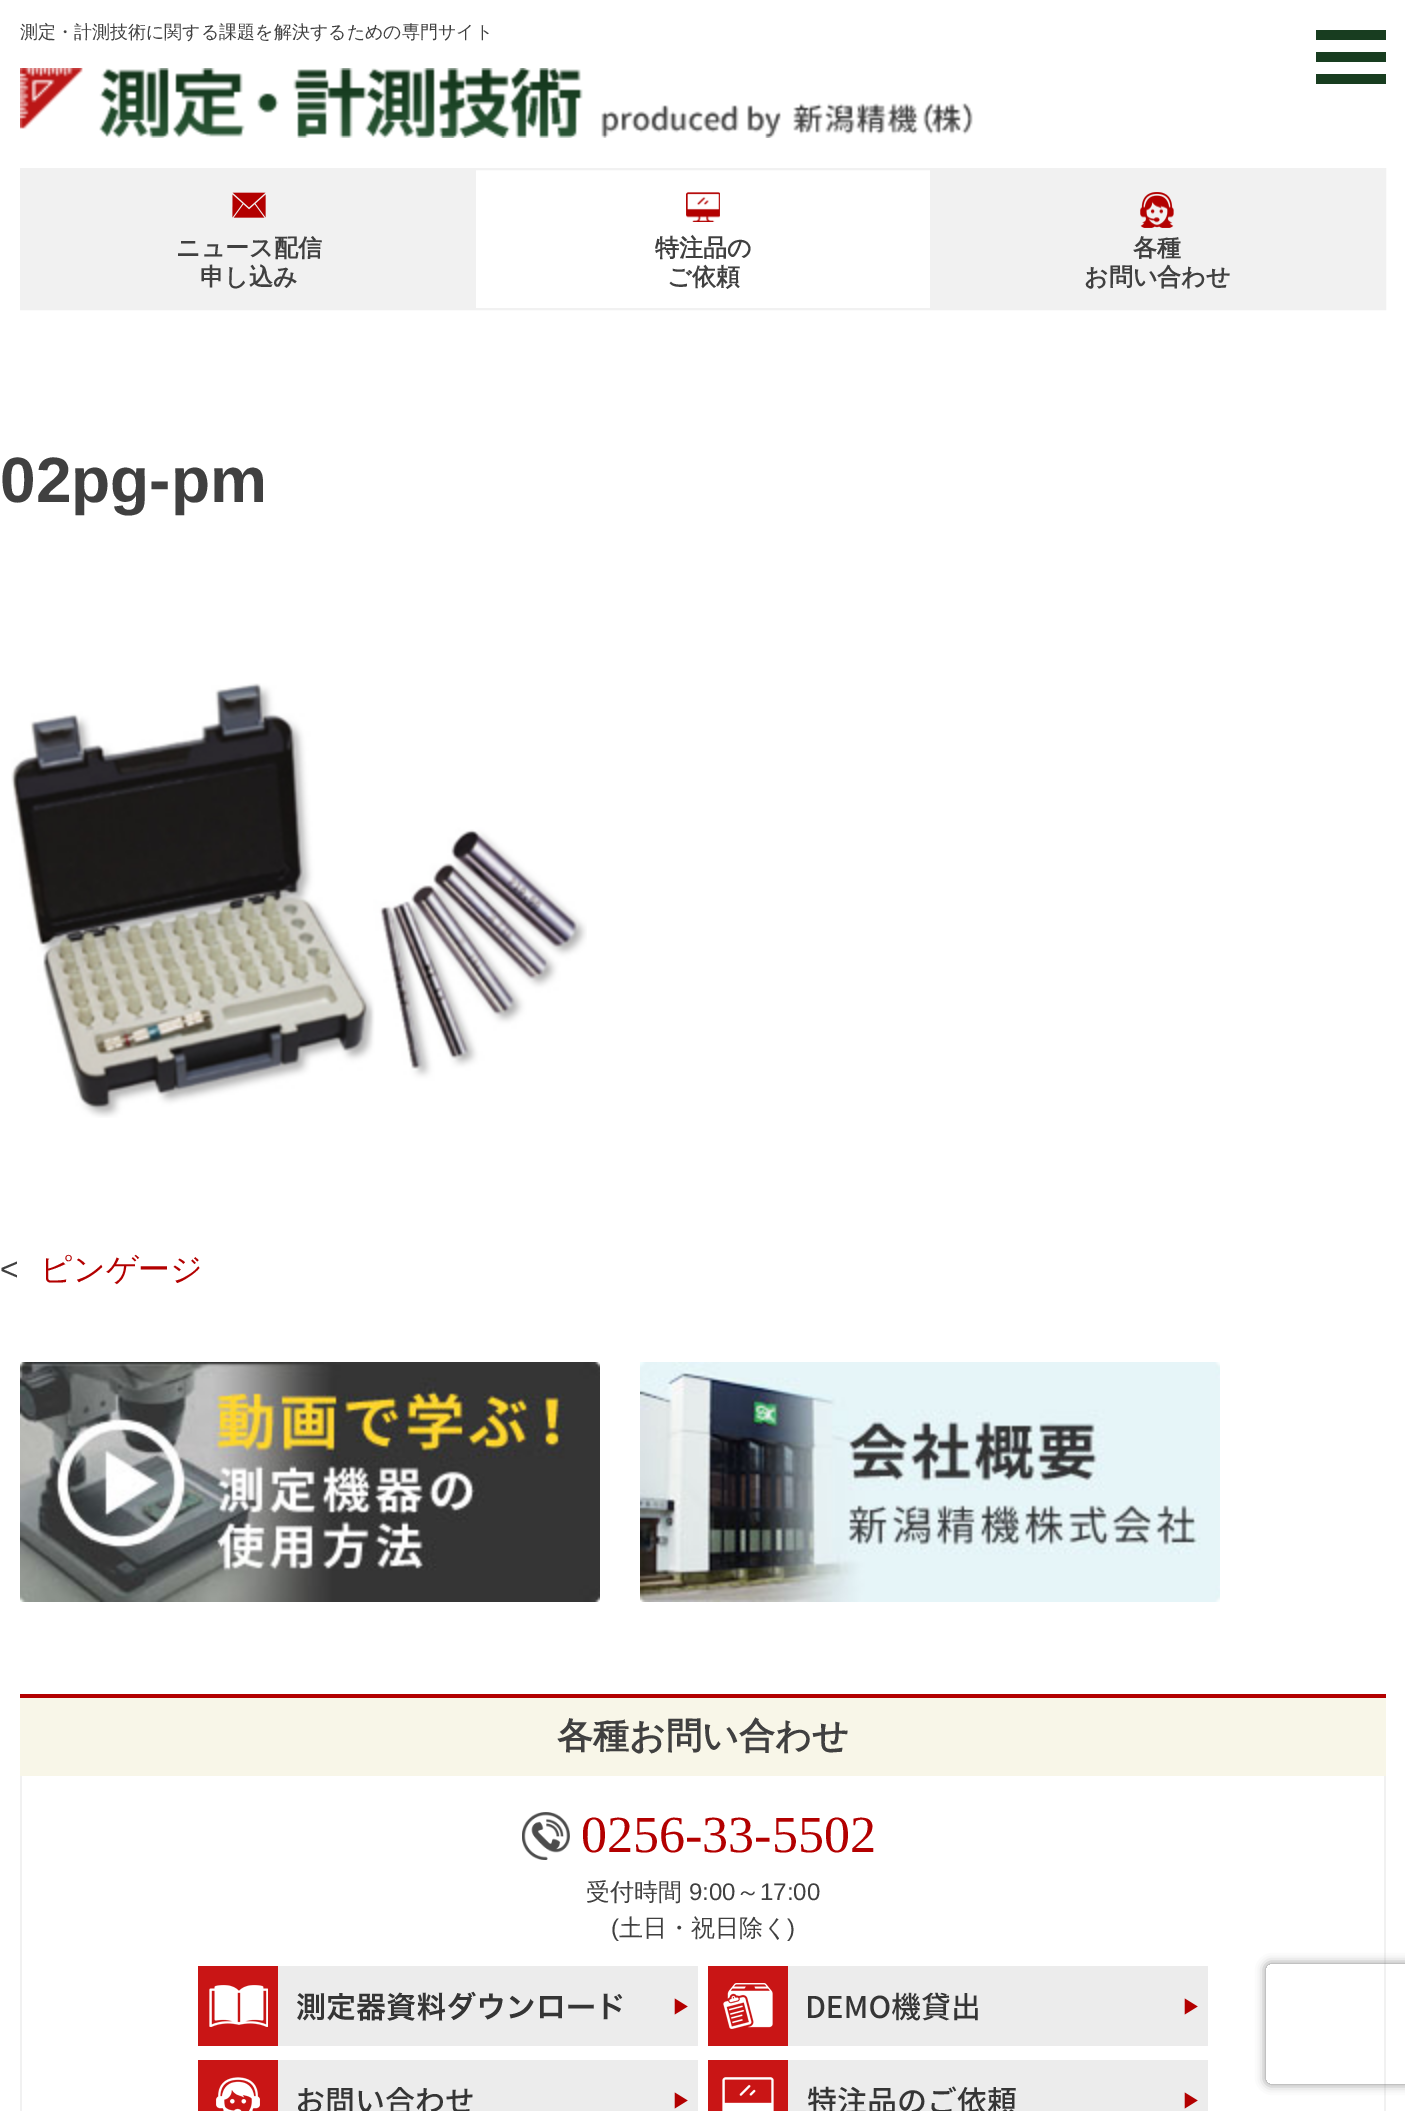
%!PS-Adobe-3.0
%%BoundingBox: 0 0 1405 2111
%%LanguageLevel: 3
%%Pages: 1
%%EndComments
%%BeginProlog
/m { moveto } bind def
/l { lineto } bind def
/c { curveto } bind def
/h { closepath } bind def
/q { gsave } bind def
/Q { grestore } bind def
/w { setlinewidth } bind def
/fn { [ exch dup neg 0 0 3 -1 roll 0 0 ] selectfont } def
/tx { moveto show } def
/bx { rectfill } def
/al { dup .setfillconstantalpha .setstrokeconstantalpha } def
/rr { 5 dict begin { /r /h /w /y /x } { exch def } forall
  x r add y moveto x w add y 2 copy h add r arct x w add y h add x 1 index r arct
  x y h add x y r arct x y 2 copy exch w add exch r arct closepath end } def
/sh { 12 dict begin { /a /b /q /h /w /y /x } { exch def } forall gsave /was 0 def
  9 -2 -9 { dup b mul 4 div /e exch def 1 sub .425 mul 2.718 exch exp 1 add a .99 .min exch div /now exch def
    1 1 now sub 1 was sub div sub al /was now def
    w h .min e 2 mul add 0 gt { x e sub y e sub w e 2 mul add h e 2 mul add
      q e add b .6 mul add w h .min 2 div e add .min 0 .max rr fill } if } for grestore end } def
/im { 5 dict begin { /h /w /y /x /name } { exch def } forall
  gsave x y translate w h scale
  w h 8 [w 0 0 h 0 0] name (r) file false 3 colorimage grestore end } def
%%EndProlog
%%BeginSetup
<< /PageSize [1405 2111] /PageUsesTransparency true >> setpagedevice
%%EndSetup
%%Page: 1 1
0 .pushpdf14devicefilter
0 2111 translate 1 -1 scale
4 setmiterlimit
1 setgray
0 0 1405 2111 bx
/WenQuanYiZenHei-Medium 18 fn
0.251 setgray
(測定・計測技術に関する課題を解決するための専門サイト) 20 38 tx
(image0.raw) 20 68 563 70 im
(image1.raw) 601 103 372 35 im
0.945 setgray
2 w
21 169 1364 140 rectstroke
22 170 454 138 bx
(image2.raw) 232 192 34 26 im
/WenQuanYiZenHei-Bold 24 fn
0.251 setgray
(ニュース配信) 176 256 tx
(申し込み) 200 285 tx
(image3.raw) 686 192 34 30 im
(特注品の) 655 256 tx
(ご依頼) 667 285 tx
0.945 setgray
930 170 454 138 bx
(image4.raw) 1140 192 34 36 im
0.251 setgray
(各種) 1133 256 tx
(お問い合わせ) 1084 285 tx
/LiberationSans-Bold 64 fn
(02pg-pm) 0 502 tx
(image5.raw) 11 683 576 435 im
/LiberationSans-Regular 32 fn
(<) 0 1280 tx
/WenQuanYiZenHei-Medium 32 fn
0.702 0 0 setrgbcolor
(ピンゲージ) 40 1280 tx
(image6.raw) 20 1362 580 240 im
(image7.raw) 640 1362 580 240 im
0.973 0.965 0.91 setrgbcolor
20 1698 1366 78 bx
0.702 0 0 setrgbcolor
20 1694 1366 4 bx
/WenQuanYiZenHei-Bold 36 fn
0.251 setgray
(各種お問い合わせ) 557 1748 tx
0.945 setgray
1384 1776 2 335 bx
20 1776 2 335 bx
(image8.raw) 522 1812 48 48 im
/LiberationSerif-Regular 52 fn
0.702 0 0 setrgbcolor
(0256-33-5502) 581 1852 tx
/WenQuanYiZenHei-Medium 24 fn
0.251 setgray
(受付時間) 586 1900 tx
/LiberationSans-Regular 24 fn
(9:00) 689 1900 tx
/WenQuanYiZenHei-Medium 24 fn
(～) 736 1900 tx
/LiberationSans-Regular 24 fn
(17:00) 760 1900 tx
(\() 611 1936 tx
/WenQuanYiZenHei-Medium 24 fn
(土日・祝日除く) 619 1936 tx
/LiberationSans-Regular 24 fn
(\)) 787 1936 tx
(image9.raw) 198 1966 500 80 im
(image10.raw) 708 1966 500 80 im
(image11.raw) 198 2060 500 51 im
(image12.raw) 708 2060 500 51 im
0.094 0.239 0.125 setrgbcolor
1316 30 70 10 bx
1316 52 70 10 bx
1316 74 70 10 bx
q
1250 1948 m 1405 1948 l 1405 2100 l 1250 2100 l h 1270 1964 m 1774 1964 l 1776 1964 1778 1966 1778 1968 c 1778 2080 l 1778 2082 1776 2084 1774 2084 c 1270 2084 l 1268 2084 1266 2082 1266 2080 c 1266 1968 l 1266 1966 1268 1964 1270 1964 c h eoclip newpath
0.502 setgray
1266 1964 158 120 4 5 1 sh
Q
.poppdf14devicefilter showpage
%%EOF
